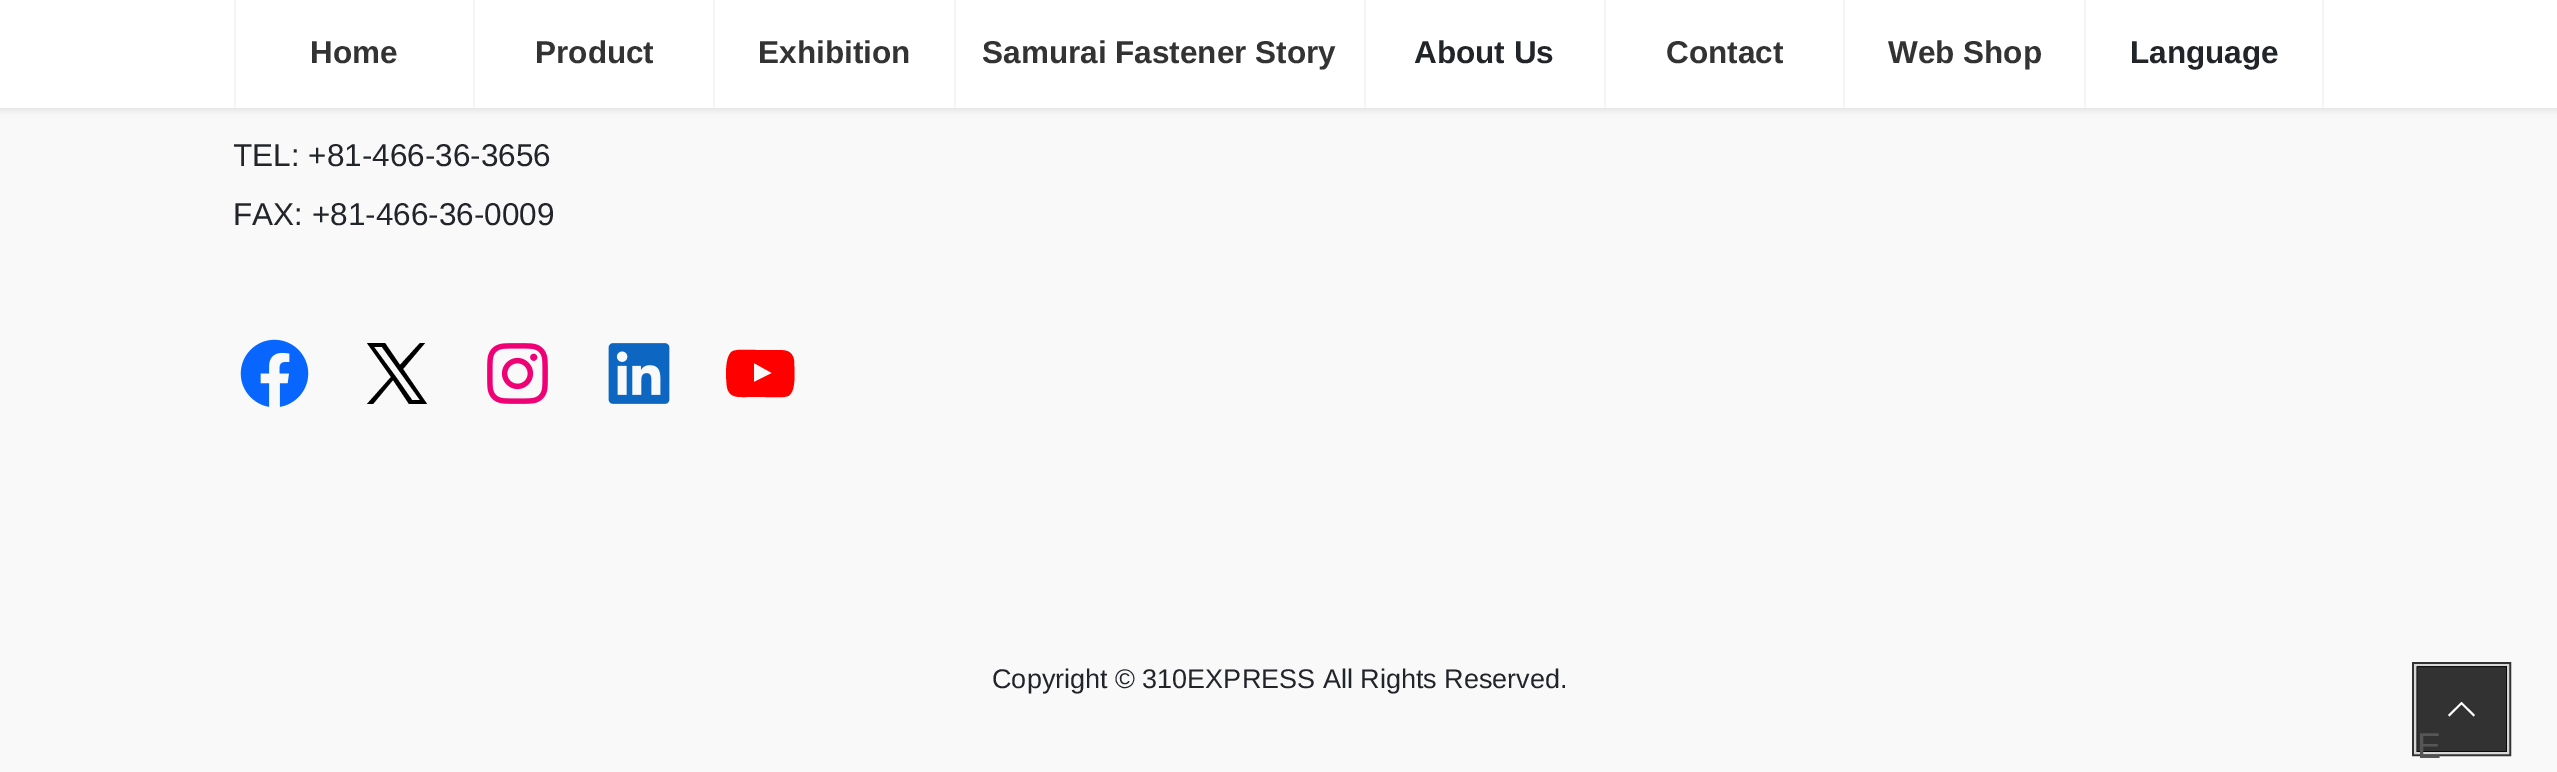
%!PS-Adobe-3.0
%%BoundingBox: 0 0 2557 772
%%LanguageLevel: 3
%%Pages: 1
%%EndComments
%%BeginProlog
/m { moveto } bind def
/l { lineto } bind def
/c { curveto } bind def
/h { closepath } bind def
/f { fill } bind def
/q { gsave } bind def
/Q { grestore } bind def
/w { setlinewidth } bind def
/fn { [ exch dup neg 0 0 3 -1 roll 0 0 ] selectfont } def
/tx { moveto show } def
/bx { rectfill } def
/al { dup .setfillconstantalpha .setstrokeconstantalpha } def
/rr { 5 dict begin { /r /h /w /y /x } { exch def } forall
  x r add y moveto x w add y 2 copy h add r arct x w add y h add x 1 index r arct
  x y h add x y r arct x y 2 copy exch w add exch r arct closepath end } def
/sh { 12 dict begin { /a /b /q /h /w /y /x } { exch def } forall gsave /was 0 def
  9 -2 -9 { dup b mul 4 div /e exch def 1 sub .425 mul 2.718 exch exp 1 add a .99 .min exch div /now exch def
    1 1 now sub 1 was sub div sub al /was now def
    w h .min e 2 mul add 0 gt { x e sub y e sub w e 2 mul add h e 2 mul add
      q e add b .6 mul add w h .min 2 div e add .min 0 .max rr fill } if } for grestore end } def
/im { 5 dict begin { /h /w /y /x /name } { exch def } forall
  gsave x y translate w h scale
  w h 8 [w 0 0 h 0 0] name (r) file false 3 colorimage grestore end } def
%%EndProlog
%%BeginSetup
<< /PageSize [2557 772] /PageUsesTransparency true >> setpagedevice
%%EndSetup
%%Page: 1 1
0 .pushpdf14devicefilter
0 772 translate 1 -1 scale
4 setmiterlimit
0.976 setgray
0 0 2557 772 bx
0 setgray
0 2 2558 108 0 3.5 0.1 sh
1 setgray
0 0 2557 108 bx
0.961 setgray
234 0 2 108 bx
/LiberationSans-Bold 31.5 fn
0.2 setgray
(Home) 310 63 tx
0.961 setgray
473 0 2 108 bx
0.2 setgray
(Product) 535 63 tx
0.961 setgray
713 0 2 108 bx
0.2 setgray
(Exhibition) 758 63 tx
0.961 setgray
954 0 2 108 bx
0.2 setgray
(Samurai Fastener Story) 982 63 tx
0.961 setgray
1364 0 2 108 bx
0.129 0.145 0.161 setrgbcolor
(About Us) 1414 63 tx
0.961 setgray
1604 0 2 108 bx
0.2 setgray
(Contact) 1666 63 tx
0.961 setgray
1843 0 2 108 bx
0.2 setgray
(Web Shop) 1888 63 tx
0.961 setgray
2322 0 2 108 bx
2084 0 2 108 bx
0.129 0.145 0.161 setrgbcolor
(Language) 2130 63 tx
q
234 0 650 277 rectclip
/LiberationSans-Regular 31.5 fn
(TEL: +81-466-36-3656) 233 166 tx
Q
/LiberationSans-Regular 31.5 fn
(FAX: +81-466-36-0009) 233 225 tx
(image0.raw) 240 339 69 68 im
0 setgray
403 369 m 425 343 l 420 343 l 400 365 l 385 343 l 367 343 l 391 377 l 367 404 l 373 404 l 393 380 l 409 404 l 427 404 l h 396 377 m 374 347 l 382 347 l 420 400 l 412 400 l h f
(image1.raw) 487 343 61 61 im
(image2.raw) 608 343 62 61 im
1 0 0 setrgbcolor
794 360 m 792 350 785 350 776 350 c 756 350 l 750 350 738 349 733 351 c 724 355 726 380 727 387 c 729 398 738 397 747 397 c 765 397 l 771 397 783 398 788 396 c 797 392 794 367 794 360 c h 754 382 m 754 363 l 772 373 l h f
/LiberationSans-Regular 27 fn
0.129 0.145 0.161 setrgbcolor
(Copyright © 310EXPRESS All Rights Reserved.) 992 688 tx
0.196 setgray
5 w
2414.5 664.5 94 89 rectstroke
0.839 setgray
2 w
2415 665 93 88 rectstroke
0.8 al
0 setgray
2417 666 90 86 bx
1 al
1 setgray
2475 715 m 2473.5 716.5 l 2461.5 704.5 l 2449.5 716.5 l 2448 715 l 2461.5 702 l h f
/LiberationSans-Regular 36 fn
0.337 setgray
(E) 2417 758 tx
.poppdf14devicefilter showpage
%%EOF
